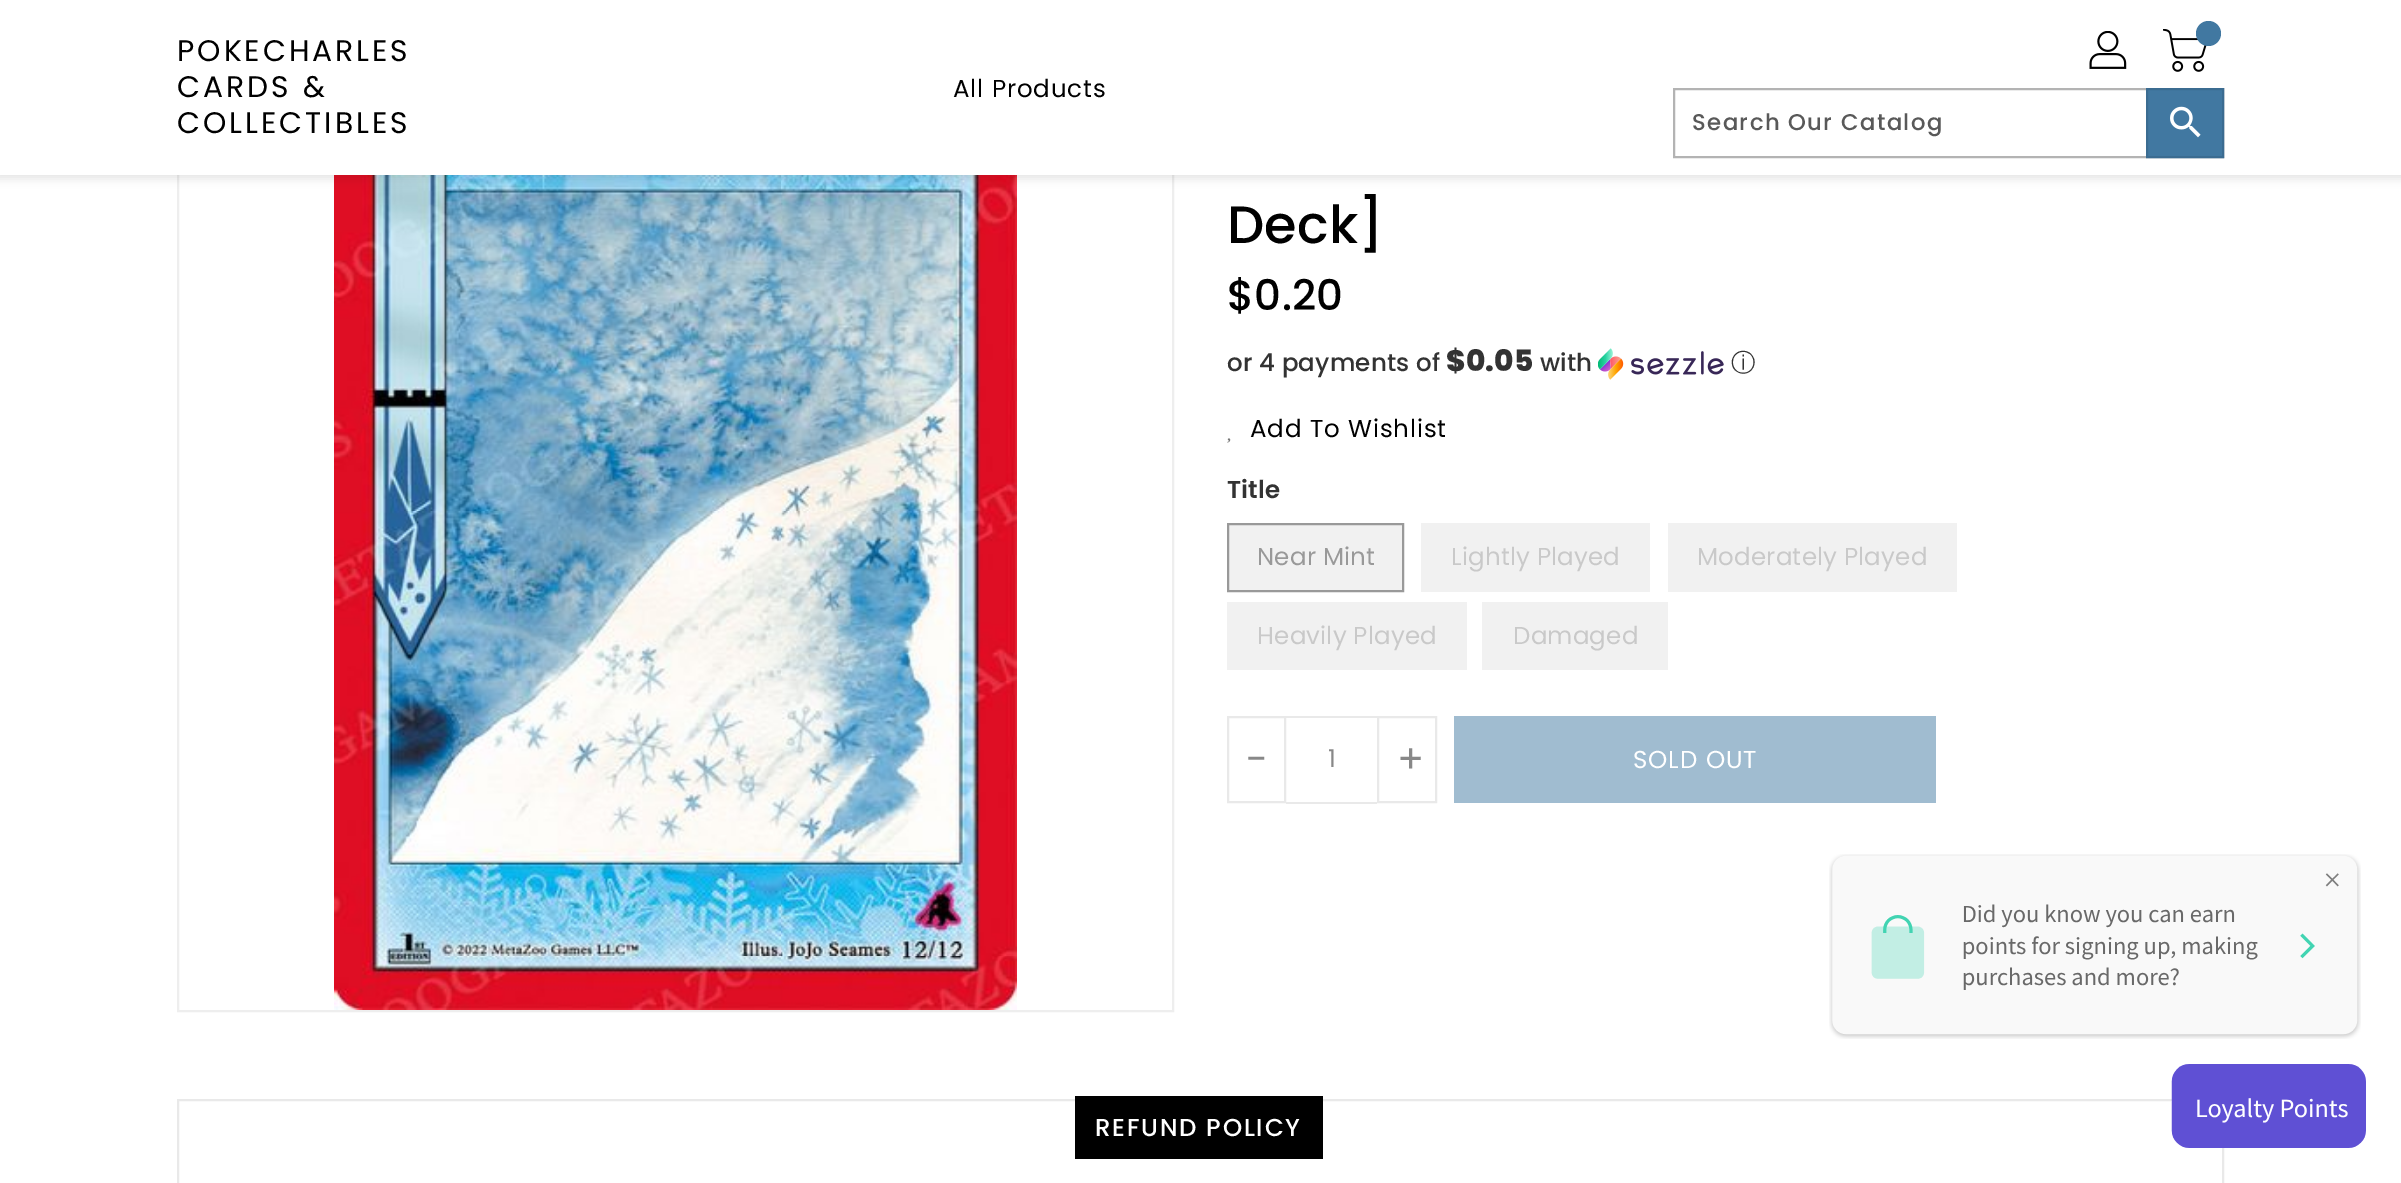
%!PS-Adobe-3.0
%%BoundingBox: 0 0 2401 1183
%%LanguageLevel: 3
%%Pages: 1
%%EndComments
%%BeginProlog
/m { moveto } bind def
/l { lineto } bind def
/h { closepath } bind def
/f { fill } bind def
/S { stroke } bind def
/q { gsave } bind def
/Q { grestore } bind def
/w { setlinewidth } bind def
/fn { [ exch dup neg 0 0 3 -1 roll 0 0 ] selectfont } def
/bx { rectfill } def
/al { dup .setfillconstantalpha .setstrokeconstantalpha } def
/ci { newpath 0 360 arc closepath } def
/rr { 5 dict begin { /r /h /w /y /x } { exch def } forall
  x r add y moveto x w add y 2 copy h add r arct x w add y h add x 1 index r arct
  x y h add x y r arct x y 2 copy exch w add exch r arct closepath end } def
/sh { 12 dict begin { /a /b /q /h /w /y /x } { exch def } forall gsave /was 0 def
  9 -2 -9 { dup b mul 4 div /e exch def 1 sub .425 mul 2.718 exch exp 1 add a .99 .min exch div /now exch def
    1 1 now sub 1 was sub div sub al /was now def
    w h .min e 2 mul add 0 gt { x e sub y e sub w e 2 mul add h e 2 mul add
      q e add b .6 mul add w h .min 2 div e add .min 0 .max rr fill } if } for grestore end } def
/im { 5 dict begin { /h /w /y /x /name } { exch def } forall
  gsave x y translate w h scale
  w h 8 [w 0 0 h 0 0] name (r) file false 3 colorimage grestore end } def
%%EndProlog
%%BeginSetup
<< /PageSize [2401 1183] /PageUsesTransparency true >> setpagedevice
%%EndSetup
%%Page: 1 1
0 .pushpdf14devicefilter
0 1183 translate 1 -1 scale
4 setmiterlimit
1 setgray
0 0 2401 1183 bx
0.933 setgray
2 w
178 64 995 947 rectstroke
(image3.raw) 334 175 683 835 im
0 setgray
-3 -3 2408 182 0 4.5 0.1 sh
1 setgray
0 0 2401 175 bx
/Poppins-Regular 29.75 fn
0 setgray
177 61 m 3 0 (POKECHARLES) ashow
177 97 m 3 0 (CARDS &) ashow
177 133 m 3 0 (COLLECTIBLES) ashow
/Poppins-Regular 24.5 fn
953 97 m 0.9 0 (All Products) ashow
(image0.raw) 2089 31 38 38 im
(image1.raw) 2163 29 44 43 im
0.255 0.471 0.631 setrgbcolor
2208.5 33.5 12.5 ci f
0.702 setgray
1674 89 549 68 rectstroke
/Poppins-Medium 22.75 fn
0.349 setgray
1692 130 m 1.4 0 (Search Our Catalog) ashow
0.255 0.471 0.631 setrgbcolor
2147 89 m 2223 89 l 2223 157 l 2147 157 l h q f Q
0.231 0.424 0.569 setrgbcolor
S
(image2.raw) 2170 106 31 32 im
/Poppins-Medium 52.5 fn
0 setgray
1227 243 m 0.2 0 (Deck]) ashow
/Poppins-Medium 42 fn
1227 310 m 0.2 0 ($0.20) ashow
/Poppins-Medium 24.5 fn
0.2 setgray
1227 371 m 0.2 0 (or 4 payments of) ashow
/Poppins-ExtraBold 29.5 fn
1446 371 m 0.2 0 ($0.05) ashow
/Poppins-Medium 24.5 fn
1540 371 m 0.2 0 (with) ashow
(image4.raw) 1598 348 126 32 im
/WenQuanYiZenHei-Medium 24.5 fn
1731 371 m 0.2 0 (ⓘ) ashow
/Poppins-Regular 24.5 fn
0 setgray
1250 437 m 0.9 0 (Add To Wishlist) ashow
(image5.raw) 1227 438 4 5 im
/Poppins-SemiBold 24.5 fn
0.2 setgray
1227 498 m 0.2 0 (Title) ashow
0.945 setgray
1228 524 m 1403 524 l 1403 591 l 1228 591 l h q f Q
0.6 setgray
S
/Poppins-Regular 24.5 fn
1257 565 m 0.2 0 (Near Mint) ashow
0.945 setgray
1421 523 229 69 bx
0.788 setgray
1451 565 m 0.2 0 (Lightly Played) ashow
0.945 setgray
1668 523 289 69 bx
0.788 setgray
1697 565 m 0.2 0 (Moderately Played) ashow
0.945 setgray
1227 602 240 68 bx
0.788 setgray
1257 644 m 0.2 0 (Heavily Played) ashow
0.945 setgray
1482 602 186 68 bx
0.788 setgray
1513 644 m 0.2 0 (Damaged) ashow
0.914 setgray
1228 717 57 85 rectstroke
/Poppins-Regular 40 fn
0.533 setgray
1246 773 m 0.9 0 (-) ashow
0.914 setgray
1286 716 91 2 bx
1286 802 91 2 bx
/Poppins-Regular 24.5 fn
0.533 setgray
1328 767 m 0.2 0 (1) ashow
0.914 setgray
1378 717 58 85 rectstroke
/Poppins-Regular 40 fn
0.533 setgray
1397 773 m 0.9 0 (+) ashow
0.627 0.737 0.816 setrgbcolor
1454 716 482 87 bx
/Poppins-Regular 24.5 fn
1 setgray
1633 768 m 0.9 0 (SOLD OUT) ashow
0.914 setgray
178 1100 2045 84 rectstroke
0 setgray
1075 1096 248 63 bx
/Poppins-Medium 24.5 fn
1 setgray
1095 1136 m 1.75 0 (REFUND POLICY) ashow
(image6.raw) 1829 854 532 185 im
(image7.raw) 2171 1064 195 84 im
.poppdf14devicefilter showpage
%%EOF
